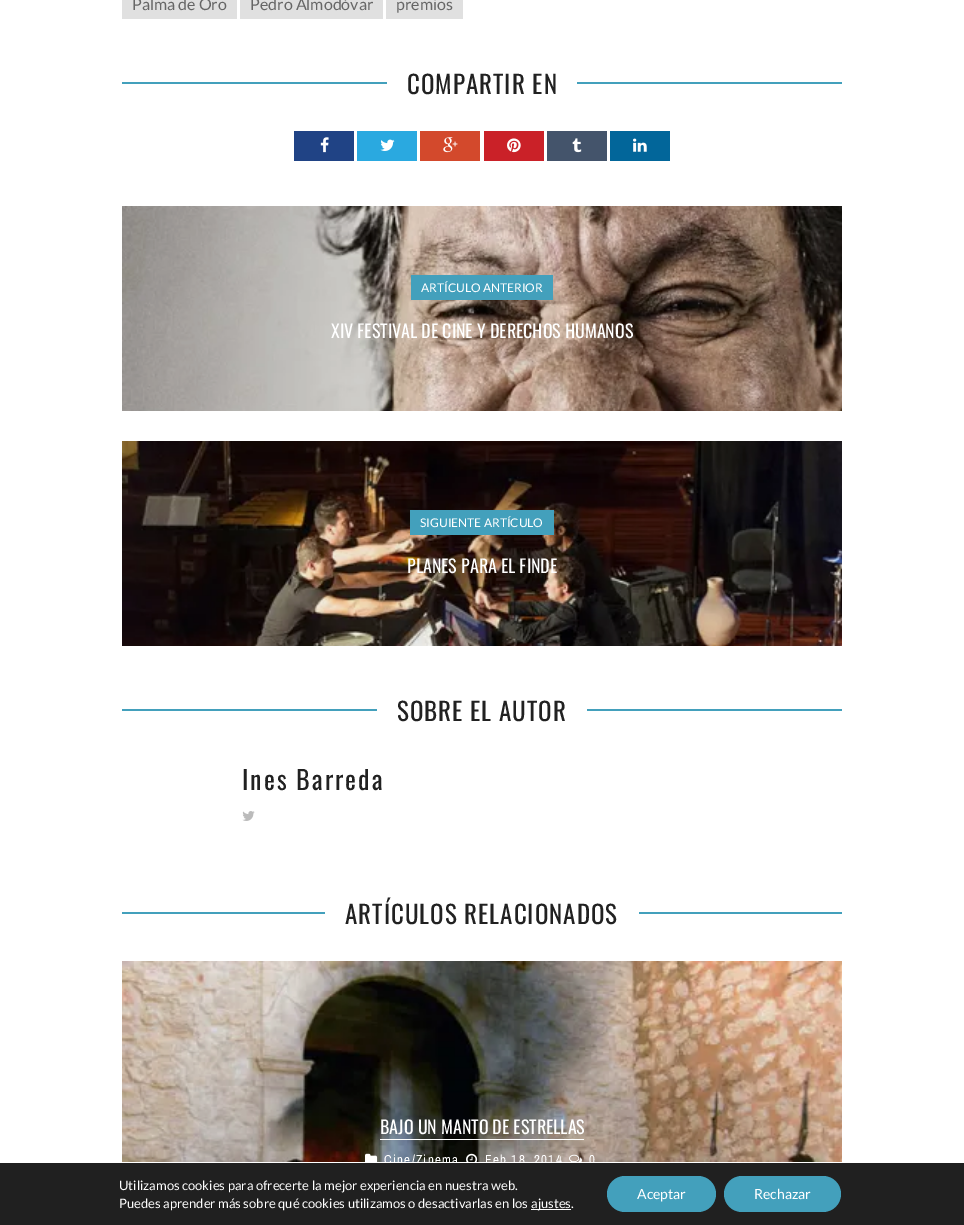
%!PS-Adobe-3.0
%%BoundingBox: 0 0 964 1225
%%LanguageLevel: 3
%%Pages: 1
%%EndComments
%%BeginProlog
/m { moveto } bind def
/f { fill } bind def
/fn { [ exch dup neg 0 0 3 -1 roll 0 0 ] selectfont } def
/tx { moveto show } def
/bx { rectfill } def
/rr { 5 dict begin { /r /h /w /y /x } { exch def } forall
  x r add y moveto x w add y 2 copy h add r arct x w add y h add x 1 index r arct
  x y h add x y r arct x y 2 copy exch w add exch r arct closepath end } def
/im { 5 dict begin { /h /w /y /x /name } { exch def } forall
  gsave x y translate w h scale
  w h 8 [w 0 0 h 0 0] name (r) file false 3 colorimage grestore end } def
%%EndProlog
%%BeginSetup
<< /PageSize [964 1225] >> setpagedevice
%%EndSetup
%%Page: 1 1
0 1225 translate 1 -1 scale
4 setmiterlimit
1 setgray
0 0 964 1225 bx
0.878 setgray
122 0 115 19 bx
/Lato-Regular 16 fn
0.4 setgray
(Palma de Oro) 132 10 tx
0.878 setgray
240 0 143 19 bx
0.4 setgray
(Pedro Almodóvar) 250 10 tx
0.878 setgray
386 0 77 19 bx
0.4 setgray
(premios) 396 10 tx
0.263 0.627 0.737 setrgbcolor
122 82 720 2 bx
1 setgray
387 82 190 2 bx
/Oswald-Regular 25 fn
0.129 setgray
407 94 m 1 0 (COMPARTIR EN) ashow
0.125 0.263 0.522 setrgbcolor
294 131 60 30 bx
(image0.raw) 320 137 9 16 im
0.165 0.663 0.878 setrgbcolor
357 131 60 30 bx
(image1.raw) 380 139 15 12 im
0.827 0.286 0.173 setrgbcolor
420 131 60 30 bx
(image2.raw) 443 137 15 16 im
0.792 0.129 0.157 setrgbcolor
484 131 60 30 bx
(image3.raw) 507 138 14 15 im
0.267 0.329 0.42 setrgbcolor
547 131 60 30 bx
(image4.raw) 572 138 10 15 im
0.008 0.4 0.604 setrgbcolor
610 131 60 30 bx
(image5.raw) 633 138 14 14 im
(image6.raw) 122 206 720 205 im
0.263 0.627 0.737 setrgbcolor
411 275 142 25 bx
/Lato-Regular 12 fn
1 setgray
(ARTÍCULO ANTERIOR) 421 292 tx
/Oswald-Regular 18 fn
(XIV FESTIVAL DE CINE Y DERECHOS HUMANOS) 331 338 tx
(image7.raw) 122 441 720 205 im
0.263 0.627 0.737 setrgbcolor
410 510 144 25 bx
/Lato-Regular 12 fn
1 setgray
(SIGUIENTE ARTÍCULO) 420 527 tx
/Oswald-Regular 18 fn
(PLANES PARA EL FINDE) 407 573 tx
0.263 0.627 0.737 setrgbcolor
122 709 720 2 bx
1 setgray
377 709 210 2 bx
/Oswald-Regular 25 fn
0.129 setgray
397 721 m 1 0 (SOBRE EL AUTOR) ashow
/Oswald-Regular 26 fn
242 790 m 2 0 (Ines Barreda) ashow
(image8.raw) 242 811 13 10 im
0.263 0.627 0.737 setrgbcolor
122 912 720 2 bx
1 setgray
325 912 314 2 bx
/Oswald-Regular 25 fn
0.129 setgray
345 924 m 1 0 (ARTÍCULOS RELACIONADOS) ashow
(image9.raw) 122 961 720 201 im
/Oswald-Regular 18 fn
1 setgray
(BAJO UN MANTO DE ESTRELLAS) 380 1134 tx
380 1139 204 1 bx
(image10.raw) 365 1153 13 9 im
/ArchivoNarrow-Regular 13 fn
384 1164 m 1.25 0 (Cine/Zinema) ashow
(image11.raw) 466 1153 12 9 im
485 1164 m 1.25 0 (Feb 18, 2014) ashow
(image12.raw) 569 1154 13 8 im
589 1164 m 1.25 0 (0) ashow
0.125 setgray
0 1163 964 62 bx
/Lato-Regular 13 fn
1 setgray
(Utilizamos cookies para ofrecerte la mejor experiencia en nuestra web.) 119 1190 tx
(Puedes aprender más sobre qué cookies utilizamos o desactivarlas en los) 119 1208 tx
531 1209 40 1 bx
(ajustes.) 531 1208 tx
0.263 0.627 0.737 setrgbcolor
607 1176 109 36 18 rr f
/Lato-Regular 14 fn
1 setgray
(Aceptar) 637 1199 tx
0.263 0.627 0.737 setrgbcolor
724 1176 117 36 18 rr f
1 setgray
(Rechazar) 754 1199 tx
showpage
%%EOF
